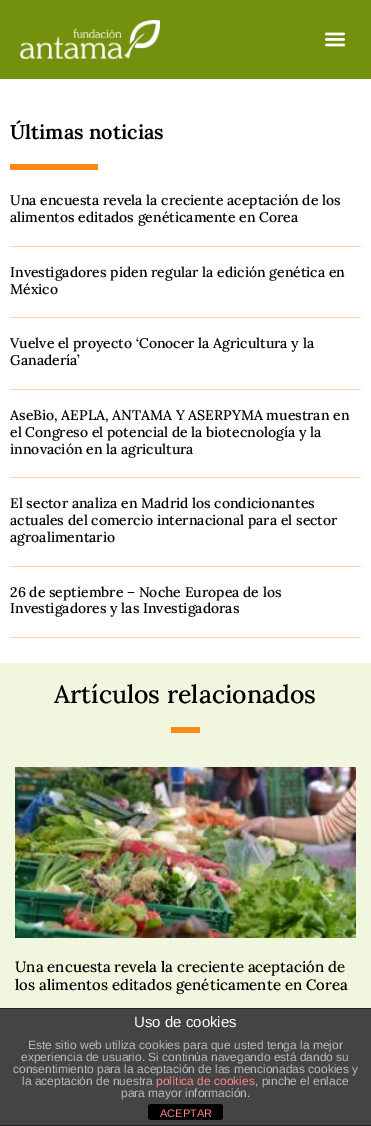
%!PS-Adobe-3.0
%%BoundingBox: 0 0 371 1126
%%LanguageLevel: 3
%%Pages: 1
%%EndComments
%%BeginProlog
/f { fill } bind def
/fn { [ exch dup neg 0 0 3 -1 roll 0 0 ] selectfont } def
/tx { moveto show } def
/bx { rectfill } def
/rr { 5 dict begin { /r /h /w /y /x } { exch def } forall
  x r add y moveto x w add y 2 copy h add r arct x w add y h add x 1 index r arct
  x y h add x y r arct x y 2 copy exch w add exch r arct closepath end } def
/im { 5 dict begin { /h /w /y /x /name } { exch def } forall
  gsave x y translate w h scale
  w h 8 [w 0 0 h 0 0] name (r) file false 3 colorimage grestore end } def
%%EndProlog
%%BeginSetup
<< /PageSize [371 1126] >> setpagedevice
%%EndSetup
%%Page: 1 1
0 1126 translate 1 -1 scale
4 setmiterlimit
1 setgray
0 0 371 1126 bx
0.451 0.569 0.051 setrgbcolor
0 0 371 79 bx
(image0.raw) 20 20 140 39 im
(image1.raw) 324 32 22 15 im
/Lora-SemiBold 20 fn
0 setgray
(Últimas noticias) 10 139 tx
0.969 0.545 0.086 setrgbcolor
10 164 88 6 bx
0.988 0.835 0.671 setrgbcolor
10 246 351 1 bx
/Lora-Medium 14 fn
0 setgray
(Una encuesta revela la creciente aceptación de los) 10 205 tx
(alimentos editados genéticamente en Corea) 10 222 tx
0.988 0.835 0.671 setrgbcolor
10 317 351 1 bx
0 setgray
(Investigadores piden regular la edición genética en) 10 277 tx
(México) 10 294 tx
0.988 0.835 0.671 setrgbcolor
10 389 351 1 bx
0 setgray
(Vuelve el proyecto ‘Conocer la Agricultura y la) 10 348 tx
(Ganadería’) 10 365 tx
0.988 0.835 0.671 setrgbcolor
10 477 351 1 bx
0 setgray
(AseBio, AEPLA, ANTAMA Y ASERPYMA muestran en) 10 420 tx
(el Congreso el potencial de la biotecnología y la) 10 437 tx
(innovación en la agricultura) 10 454 tx
0.988 0.835 0.671 setrgbcolor
10 566 351 1 bx
0 setgray
(El sector analiza en Madrid los condicionantes) 10 508 tx
(actuales del comercio internacional para el sector) 10 525 tx
(agroalimentario) 10 542 tx
0.988 0.835 0.671 setrgbcolor
10 637 351 1 bx
0 setgray
(26 de septiembre – Noche Europea de los) 10 597 tx
(Investigadores y las Investigadoras) 10 613 tx
0.945 0.969 0.871 setrgbcolor
0 663 371 345 bx
/Lora-Medium 25 fn
0 setgray
(Artículos relacionados) 54 703 tx
0.969 0.545 0.086 setrgbcolor
171 727 29 6 bx
(image2.raw) 15 767 341 171 im
/Lora-Medium 15 fn
0 setgray
(Una encuesta revela la creciente aceptación de) 15 972 tx
(los alimentos editados genéticamente en Corea) 15 990 tx
0.267 setgray
0 1009 371 116 bx
0.133 setgray
0 1008 371 1 bx
0 1125 371 1 bx
/LiberationSans-Regular 15 fn
1 setgray
(Uso de cookies) 134 1027 tx
/LiberationSans-Regular 12 fn
0.733 setgray
(Este sitio web utiliza cookies para que usted tenga la mejor) 28 1049 tx
(experiencia de usuario. Si continúa navegando está dando su) 21 1061 tx
(consentimiento para la aceptación de las mencionadas cookies y) 13 1073 tx
(la aceptación de nuestra) 22 1085 tx
1 0.533 0.533 setrgbcolor
(política de cookies) 156 1085 tx
0.733 setgray
(, pinche el enlace) 255 1085 tx
(para mayor información.) 121 1097 tx
0 setgray
148 1104 75 16 3 rr f
/LiberationSans-Regular 11 fn
1 0.533 0.533 setrgbcolor
(ACEPTAR) 160 1117 tx
showpage
%%EOF
